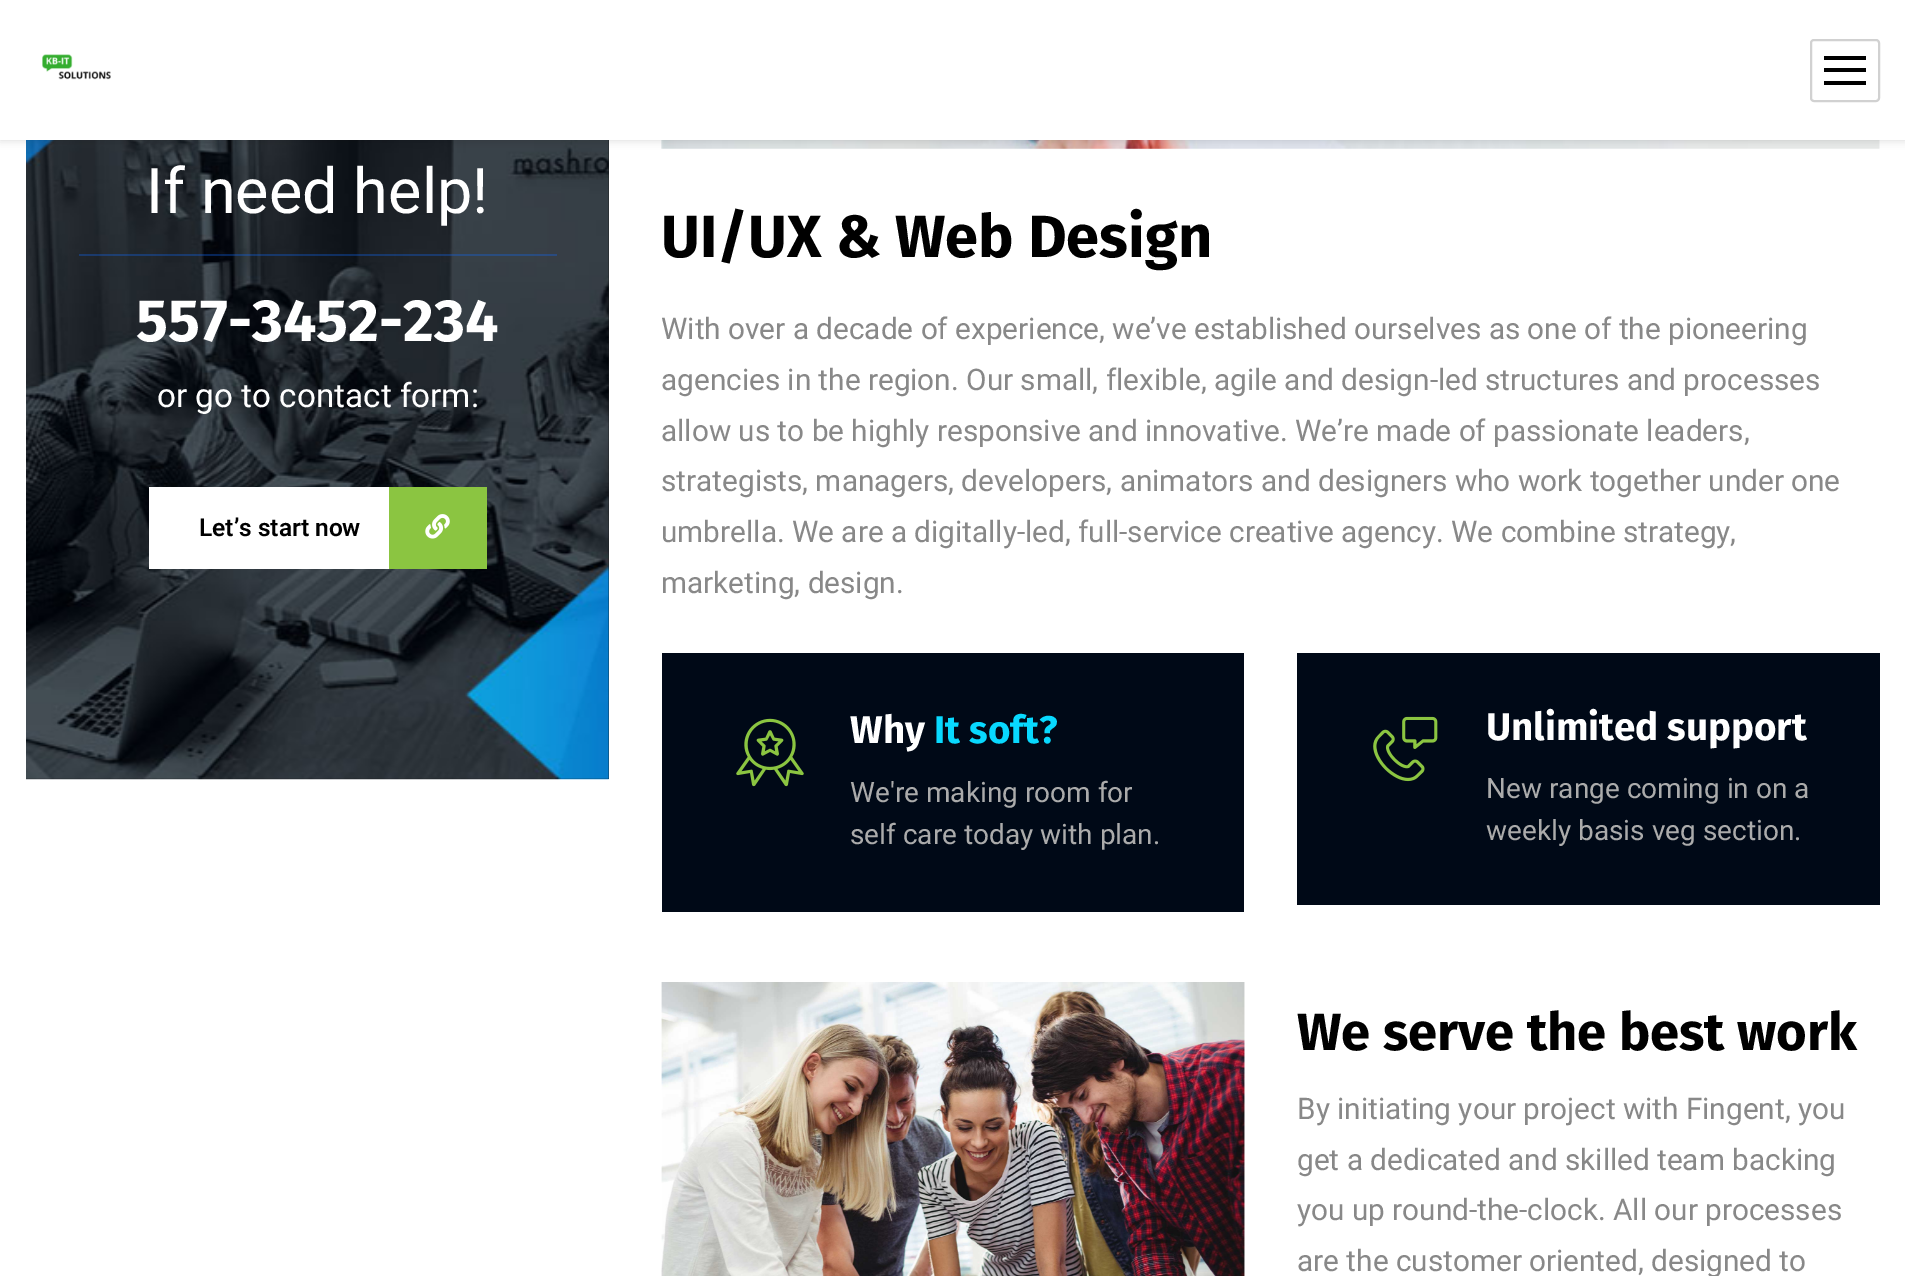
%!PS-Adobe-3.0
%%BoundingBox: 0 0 1905 1276
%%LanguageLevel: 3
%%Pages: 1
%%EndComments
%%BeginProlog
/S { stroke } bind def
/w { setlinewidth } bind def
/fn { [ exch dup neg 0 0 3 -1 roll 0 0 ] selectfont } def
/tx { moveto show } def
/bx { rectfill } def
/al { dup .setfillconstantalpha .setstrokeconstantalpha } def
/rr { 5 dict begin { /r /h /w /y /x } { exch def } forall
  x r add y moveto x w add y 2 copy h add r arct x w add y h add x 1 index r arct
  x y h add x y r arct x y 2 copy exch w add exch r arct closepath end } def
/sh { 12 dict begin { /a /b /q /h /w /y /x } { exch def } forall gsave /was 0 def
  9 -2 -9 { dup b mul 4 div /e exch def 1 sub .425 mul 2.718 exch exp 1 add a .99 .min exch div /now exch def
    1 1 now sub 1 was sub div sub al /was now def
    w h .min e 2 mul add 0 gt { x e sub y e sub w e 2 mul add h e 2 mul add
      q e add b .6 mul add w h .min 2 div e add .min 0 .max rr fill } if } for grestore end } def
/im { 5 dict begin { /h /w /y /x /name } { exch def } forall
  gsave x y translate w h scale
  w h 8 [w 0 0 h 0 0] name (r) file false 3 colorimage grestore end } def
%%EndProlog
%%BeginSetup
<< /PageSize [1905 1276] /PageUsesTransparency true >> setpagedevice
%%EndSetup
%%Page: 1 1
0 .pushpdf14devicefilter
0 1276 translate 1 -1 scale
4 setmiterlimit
1 setgray
0 0 1905 1276 bx
0.098 setgray
26 140 583 639 bx
(image1.raw) 26 140 583 640 im
(image3.raw) 661 140 1219 9 im
0 setgray
0 0 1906 140 0 4.5 0.15 sh
1 setgray
0 0 1905 140 bx
(image0.raw) 42 54 69 26 im
0.82 setgray
2 w
1811 40 68 61 3 rr S
0 setgray
1824 56 42 4 bx
1824 68 42 4 bx
1824 81 42 4 bx
0.32 al
0.059 0.404 0.965 setrgbcolor
79 254 478 2 bx
/Roboto-Regular 63 fn
1 al
1 setgray
(If need help!) 146 213 tx
/FiraSans-Bold 59.5 fn
(557-3452-234) 136 341 tx
/Roboto-Regular 33.25 fn
(or go to contact form:) 157 407 tx
149 487 240 82 bx
/Roboto-SemiBold 24.5 fn
0 setgray
(Let’s start now) 199 536 tx
0.545 0.773 0.255 setrgbcolor
389 487 98 82 bx
(image2.raw) 425 514 25 25 im
/FiraSans-Bold 59.5 fn
0 setgray
(UI/UX & Web Design) 661 257 tx
/Roboto-Regular 29.75 fn
0.533 setgray
(With over a decade of experience, we’ve established ourselves as one of the pioneering) 661 339 tx
(agencies in the region. Our small, flexible, agile and design-led structures and processes) 661 390 tx
(allow us to be highly responsive and innovative. We’re made of passionate leaders,) 661 441 tx
(strategists, managers, developers, animators and designers who work together under one) 661 491 tx
(umbrella. We are a digitally-led, full-service creative agency. We combine strategy,) 661 542 tx
(marketing, design.) 661 593 tx
0 0.035 0.09 setrgbcolor
662 653 582 259 bx
(image4.raw) 736 718 68 69 im
/FiraSans-Bold 38.5 fn
1 setgray
(Why) 850 743 tx
0.031 0.851 1 setrgbcolor
(It soft?) 934 743 tx
/Roboto-Regular 28 fn
0.671 setgray
(We're making room for) 850 802 tx
(self care today with plan.) 850 844 tx
0 0.035 0.09 setrgbcolor
1297 653 583 252 bx
(image5.raw) 1373 716 65 66 im
/FiraSans-Bold 38.5 fn
1 setgray
(Unlimited support) 1486 740 tx
/Roboto-Regular 28 fn
0.671 setgray
(New range coming in on a) 1486 798 tx
(weekly basis veg section.) 1486 840 tx
(image6.raw) 661 982 584 294 im
/FiraSans-Bold 52.5 fn
0 setgray
(We serve the best work) 1297 1050 tx
/Roboto-Regular 29.75 fn
0.533 setgray
(By initiating your project with Fingent, you) 1297 1119 tx
(get a dedicated and skilled team backing) 1297 1170 tx
(you up round-the-clock. All our processes) 1297 1220 tx
(are the customer oriented, designed to) 1297 1271 tx
.poppdf14devicefilter showpage
%%EOF
